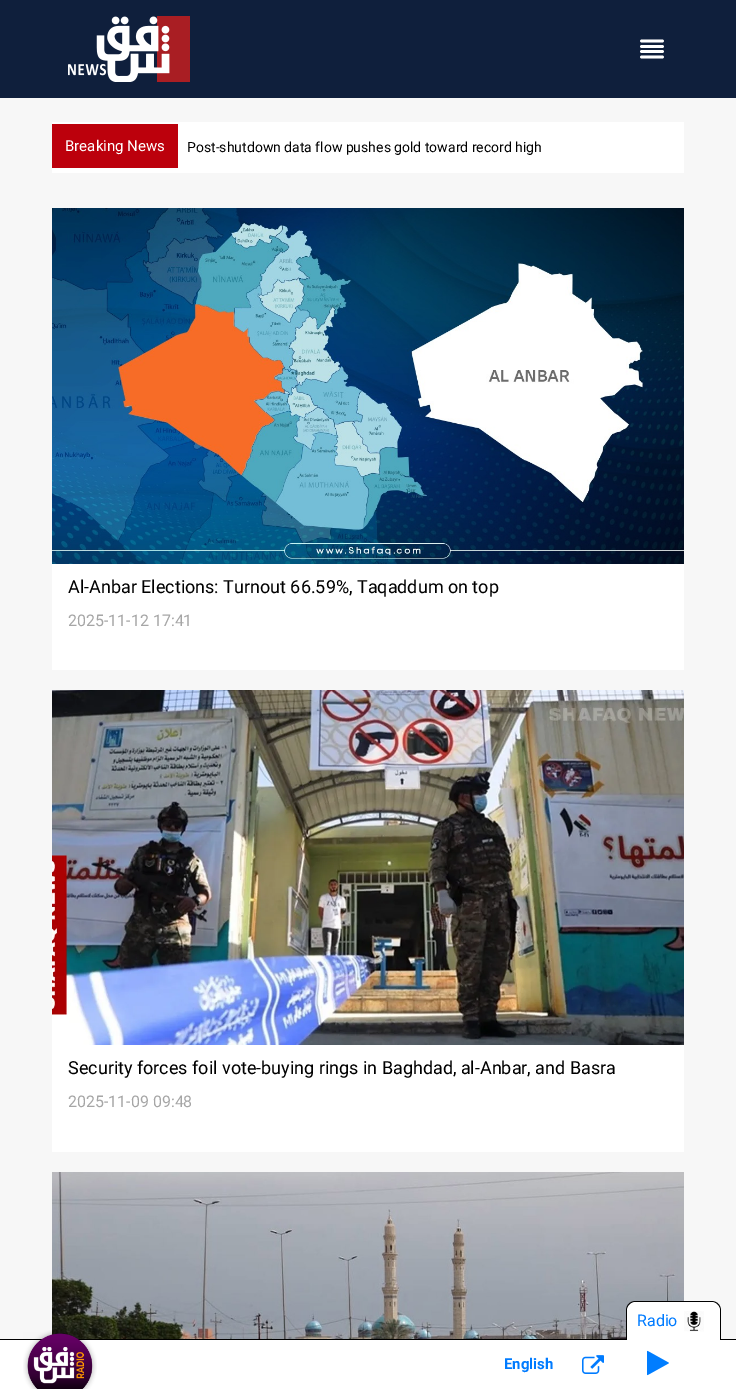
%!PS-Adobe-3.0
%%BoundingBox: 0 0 736 1389
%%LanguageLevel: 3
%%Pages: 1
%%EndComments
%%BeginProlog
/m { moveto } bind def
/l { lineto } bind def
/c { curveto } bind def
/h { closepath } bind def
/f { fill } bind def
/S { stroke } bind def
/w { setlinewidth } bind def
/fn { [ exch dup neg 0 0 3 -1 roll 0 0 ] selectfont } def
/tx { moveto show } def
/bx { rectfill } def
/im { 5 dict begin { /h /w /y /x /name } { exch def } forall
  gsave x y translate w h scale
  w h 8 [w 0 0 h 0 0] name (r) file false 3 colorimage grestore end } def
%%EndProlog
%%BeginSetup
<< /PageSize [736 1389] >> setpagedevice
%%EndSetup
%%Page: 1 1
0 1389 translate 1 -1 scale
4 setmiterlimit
0.969 setgray
0 0 736 1389 bx
0.059 0.122 0.235 setrgbcolor
0 0 736 98 bx
(image0.raw) 68 16 122 66 im
1 setgray
2.7 w
1 setlinecap
1 setlinejoin
641.5 41 m 662.5 41 l 641.5 46.5 m 662.5 46.5 l 641.5 51.5 m 662.5 51.5 l 641.5 57 m 662.5 57 l S
52 122 632 51 bx
0.737 0 0.047 setrgbcolor
52 124 126 44 bx
/Roboto-Regular 15 fn
1 setgray
(Breaking News) 65 151 tx
/Roboto-Regular 14 fn
0 setgray
(Post-shutdown data flow pushes gold toward record high) 187 152 tx
(image1.raw) 52 208 632 356 im
1 setgray
52 564 632 106 bx
/Roboto-Regular 18 fn
0 setgray
(Al-Anbar Elections: Turnout 66.59%, Taqaddum on top) 68 593 tx
/Roboto-Regular 16 fn
0.651 setgray
(2025-11-12 17:41) 68 626 tx
(image2.raw) 52 690 632 355 im
1 setgray
52 1045 632 107 bx
/Roboto-Regular 18 fn
0 setgray
(Security forces foil vote-buying rings in Baghdad, al-Anbar, and Basra) 68 1074 tx
/Roboto-Regular 16 fn
0.651 setgray
(2025-11-09 09:48) 68 1107 tx
(image3.raw) 52 1172 632 167 im
1 setgray
0 1340 736 49 bx
0 setgray
0 1339 736 1 bx
636 1301 m 711 1301 l 717 1301 721 1305 721 1311 c 721 1340 l 626 1340 l 626 1311 l 626 1305 630 1301 636 1301 c h 636 1302 m 711 1302 l 716 1302 720 1306 720 1311 c 720 1340 l 627 1340 l 627 1311 l 627 1306 631 1302 636 1302 c h eofill
1 setgray
636 1302 m 711 1302 l 716 1302 720 1306 720 1311 c 720 1340 l 627 1340 l 627 1311 l 627 1306 631 1302 636 1302 c h f
0 0.482 1 setrgbcolor
(Radio) 637 1326 tx
(image4.raw) 684 1311 20 21 im
(image5.raw) 23 1330 74 59 im
/Roboto-Bold 15 fn
(English) 504 1369 tx
(image6.raw) 582 1355 22 19 im
(image7.raw) 647 1350 22 26 im
showpage
%%EOF
